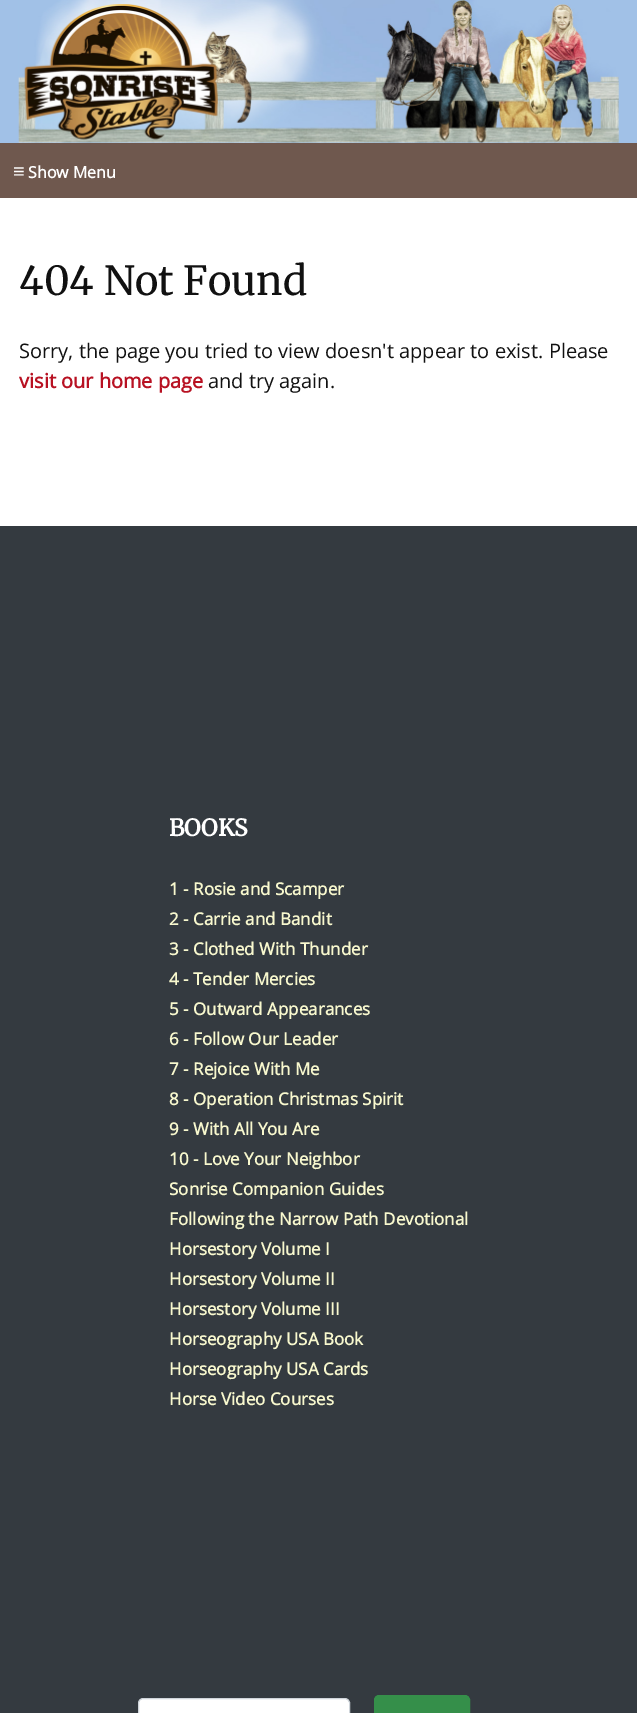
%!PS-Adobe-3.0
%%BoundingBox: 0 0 637 1713
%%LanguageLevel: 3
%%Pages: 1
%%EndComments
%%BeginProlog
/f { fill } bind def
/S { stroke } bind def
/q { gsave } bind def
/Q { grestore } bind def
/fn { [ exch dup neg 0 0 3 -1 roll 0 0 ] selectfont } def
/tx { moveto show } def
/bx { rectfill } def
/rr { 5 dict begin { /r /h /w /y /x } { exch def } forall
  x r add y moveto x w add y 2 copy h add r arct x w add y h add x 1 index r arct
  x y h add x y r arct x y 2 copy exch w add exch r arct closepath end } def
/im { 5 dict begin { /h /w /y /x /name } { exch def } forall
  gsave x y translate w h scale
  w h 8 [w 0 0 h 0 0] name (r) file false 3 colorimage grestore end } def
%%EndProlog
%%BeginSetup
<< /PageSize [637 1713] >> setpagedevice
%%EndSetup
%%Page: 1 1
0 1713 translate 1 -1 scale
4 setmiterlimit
1 setgray
0 0 637 1713 bx
0.631 0.757 0.906 setrgbcolor
0 0 637 143 bx
(image0.raw) 18 0 601 143 im
0.435 0.345 0.306 setrgbcolor
0 143 637 55 bx
/LiberationSans-Bold 20 fn
1 setgray
(≡) 13 178 tx
/OpenSans-Bold 16 fn
(Show Menu) 28 178 tx
/Merriweather-Light 40 fn
0.067 setgray
(404 Not Found) 19 295 tx
/OpenSans-Regular 20 fn
(Sorry, the page you tried to view doesn't appear to exist. Please) 19 358 tx
/OpenSans-Bold 20 fn
0.722 0.067 0.133 setrgbcolor
(visit our home page) 19 388 tx
/OpenSans-Regular 20 fn
0.067 setgray
(and try again.) 208 388 tx
0.204 0.227 0.251 setrgbcolor
0 526 637 1187 bx
/Merriweather-Bold 23 fn
1 setgray
(BOOKS) 169 836 tx
/OpenSans-Bold 17 fn
0.973 0.973 0.808 setrgbcolor
(1 - Rosie and Scamper) 169 895 tx
(2 - Carrie and Bandit) 169 925 tx
(3 - Clothed With Thunder) 169 955 tx
(4 - Tender Mercies) 169 985 tx
(5 - Outward Appearances) 169 1015 tx
(6 - Follow Our Leader) 169 1045 tx
(7 - Rejoice With Me) 169 1075 tx
(8 - Operation Christmas Spirit) 169 1105 tx
(9 - With All You Are) 169 1135 tx
(10 - Love Your Neighbor) 169 1165 tx
(Sonrise Companion Guides) 169 1195 tx
(Following the Narrow Path Devotional) 169 1225 tx
(Horsestory Volume I) 169 1255 tx
(Horsestory Volume II) 169 1285 tx
(Horsestory Volume III) 169 1315 tx
(Horseography USA Book) 169 1345 tx
(Horseography USA Cards) 169 1375 tx
(Horse Video Courses) 169 1405 tx
1 setgray
139 1699 210 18 4 rr f
0.808 0.831 0.855 setrgbcolor
138.5 1698.5 211 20 4.5 rr S
0.208 0.561 0.29 setrgbcolor
374.5 1695.5 95 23 4.5 rr q f Q
S
showpage
%%EOF
